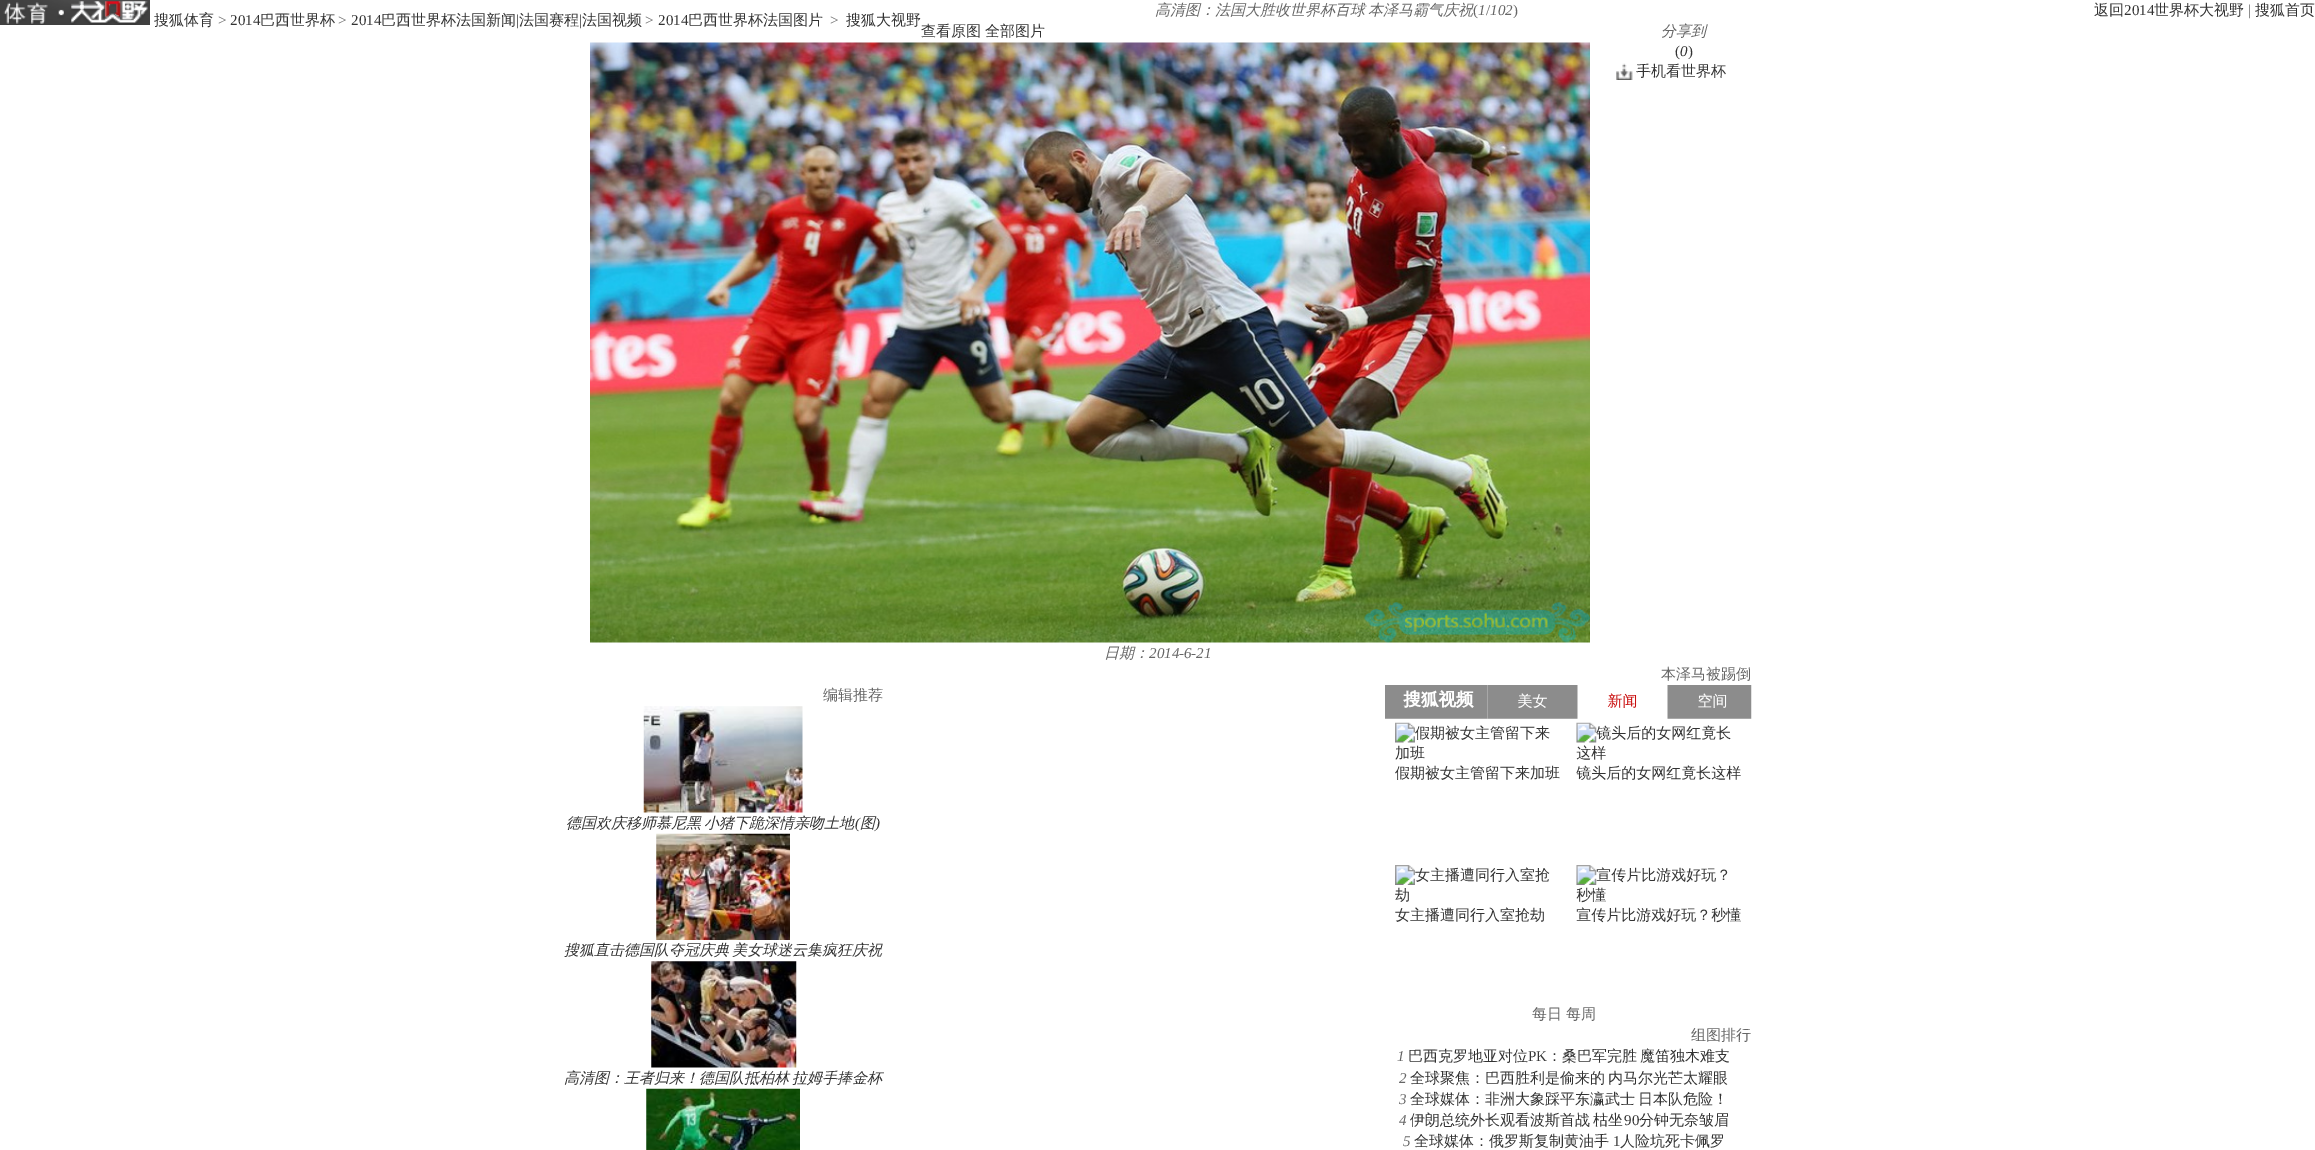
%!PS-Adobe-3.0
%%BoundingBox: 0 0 2315 1150
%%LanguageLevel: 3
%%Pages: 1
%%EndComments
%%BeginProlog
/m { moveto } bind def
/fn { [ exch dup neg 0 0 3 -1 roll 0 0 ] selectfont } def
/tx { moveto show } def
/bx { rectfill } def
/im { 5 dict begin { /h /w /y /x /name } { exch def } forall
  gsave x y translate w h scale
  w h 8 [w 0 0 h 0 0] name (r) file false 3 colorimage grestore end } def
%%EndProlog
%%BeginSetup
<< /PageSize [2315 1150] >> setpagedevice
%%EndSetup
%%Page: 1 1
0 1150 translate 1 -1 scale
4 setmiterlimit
1 setgray
0 0 2315 1150 bx
(image0.raw) 0 0 150 25 im
/WenQuanYiZenHei-Medium 15 fn
0.2 setgray
(搜狐体育) 154 25 tx
/LiberationSerif-Regular 15 fn
0.4 setgray
(>) 218 25 tx
0.2 setgray
(2014) 230 25 tx
/WenQuanYiZenHei-Medium 15 fn
(巴西世界杯) 260 25 tx
/LiberationSerif-Regular 15 fn
0.4 setgray
(>) 338 25 tx
0.2 setgray
(2014) 351 25 tx
/WenQuanYiZenHei-Medium 15 fn
(巴西世界杯法国新闻) 381 25 tx
/LiberationSerif-Regular 15 fn
(|) 516 25 tx
/WenQuanYiZenHei-Medium 15 fn
(法国赛程) 519 25 tx
/LiberationSerif-Regular 15 fn
(|) 579 25 tx
/WenQuanYiZenHei-Medium 15 fn
(法国视频) 582 25 tx
/LiberationSerif-Regular 15 fn
0.4 setgray
(>) 645 25 tx
0.2 setgray
(2014) 658 25 tx
/WenQuanYiZenHei-Medium 15 fn
(巴西世界杯法国图片) 688 25 tx
/LiberationSerif-Regular 15 fn
0.4 setgray
(>) 830 25 tx
/WenQuanYiZenHei-Medium 15 fn
0.2 setgray
(搜狐大视野) 846 25 tx
(返回) 2094 15 tx
/LiberationSerif-Regular 15 fn
(2014) 2124 15 tx
/WenQuanYiZenHei-Medium 15 fn
(世界杯大视野) 2154 15 tx
/LiberationSerif-Regular 15 fn
0.4 setgray
(|) 2248 15 tx
/WenQuanYiZenHei-Medium 15 fn
0.2 setgray
(搜狐首页) 2255 15 tx
/WenQuanYiZenHei-MediumItalic 15 fn
0.4 setgray
1155 15 m -1 0 32 (高清图：法国大胜收世界杯百球 本泽马霸气庆祝) widthshow
/LiberationSerif-Regular 15 fn
(\() 1473 15 tx
/LiberationSerif-Italic 15 fn
(1) 1478 15 tx
/LiberationSerif-Regular 15 fn
(/) 1486 15 tx
/LiberationSerif-Italic 15 fn
(102) 1490 15 tx
/LiberationSerif-Regular 15 fn
(\)) 1513 15 tx
/WenQuanYiZenHei-Medium 15 fn
0.2 setgray
(查看原图) 921 36 tx
(全部图片) 985 36 tx
/WenQuanYiZenHei-MediumItalic 15 fn
0.4 setgray
(分享到) 1661 36 tx
/LiberationSerif-Regular 15 fn
0.2 setgray
(\() 1675 56 tx
/LiberationSerif-Italic 15 fn
(0) 1680 56 tx
/LiberationSerif-Regular 15 fn
(\)) 1688 56 tx
(image1.raw) 1616 63 17 17 im
/WenQuanYiZenHei-Medium 15 fn
(手机看世界杯) 1636 76 tx
(image2.raw) 590 42 1000 601 im
/WenQuanYiZenHei-MediumItalic 15 fn
0.4 setgray
(日期：) 1104 658 tx
/LiberationSerif-Italic 15 fn
(2014-6-21) 1149 658 tx
/WenQuanYiZenHei-Medium 15 fn
(本泽马被踢倒) 1661 679 tx
(编辑推荐) 823 700 tx
(image3.raw) 643 706 160 107 im
/WenQuanYiZenHei-MediumItalic 15 fn
0.2 setgray
566 828 m -1 0 32 (德国欢庆移师慕尼黑 小猪下跪深情亲吻土地) widthshow
/LiberationSerif-Italic 15 fn
(\() 855 828 tx
/WenQuanYiZenHei-MediumItalic 15 fn
(图) 860 828 tx
/LiberationSerif-Italic 15 fn
(\)) 875 828 tx
(image4.raw) 656 833 134 107 im
/WenQuanYiZenHei-MediumItalic 15 fn
564 955 m -1 0 32 (搜狐直击德国队夺冠庆典 美女球迷云集疯狂庆祝) widthshow
(image5.raw) 651 961 146 107 im
564 1083 m -1 0 32 (高清图：王者归来！德国队抵柏林 拉姆手捧金杯) widthshow
(image6.raw) 646 1088 154 62 im
(image7.raw) 1385 685 367 238 im
/WenQuanYiZenHei-Medium 15 fn
0.4 setgray
(每日) 1532 1019 tx
(每周) 1566 1019 tx
(组图排行) 1691 1040 tx
/LiberationSerif-Italic 15 fn
(1) 1397 1061 tx
/WenQuanYiZenHei-Medium 15 fn
0.2 setgray
(巴西克罗地亚对位) 1408 1061 tx
/LiberationSerif-Regular 15 fn
(PK) 1528 1061 tx
/WenQuanYiZenHei-Medium 15 fn
1547 1061 m -1 0 32 (：桑巴军完胜 魔笛独木难支) widthshow
/LiberationSerif-Italic 15 fn
0.4 setgray
(2) 1399 1083 tx
/WenQuanYiZenHei-Medium 15 fn
0.2 setgray
1410 1083 m -1 0 32 (全球聚焦：巴西胜利是偷来的 内马尔光芒太耀眼) widthshow
/LiberationSerif-Italic 15 fn
0.4 setgray
(3) 1399 1104 tx
/WenQuanYiZenHei-Medium 15 fn
0.2 setgray
1410 1104 m -1 0 32 (全球媒体：非洲大象踩平东瀛武士 日本队危险！) widthshow
/LiberationSerif-Italic 15 fn
0.4 setgray
(4) 1399 1125 tx
/WenQuanYiZenHei-Medium 15 fn
0.2 setgray
1410 1125 m -1 0 32 (伊朗总统外长观看波斯首战 枯坐) widthshow
/LiberationSerif-Regular 15 fn
(90) 1624 1125 tx
/WenQuanYiZenHei-Medium 15 fn
(分钟无奈皱眉) 1639 1125 tx
/LiberationSerif-Italic 15 fn
0.4 setgray
(5) 1403 1146 tx
/WenQuanYiZenHei-Medium 15 fn
0.2 setgray
(全球媒体：俄罗斯复制黄油手) 1414 1146 tx
/LiberationSerif-Regular 15 fn
(1) 1613 1146 tx
/WenQuanYiZenHei-Medium 15 fn
(人险坑死卡佩罗) 1620 1146 tx
showpage
%%EOF
